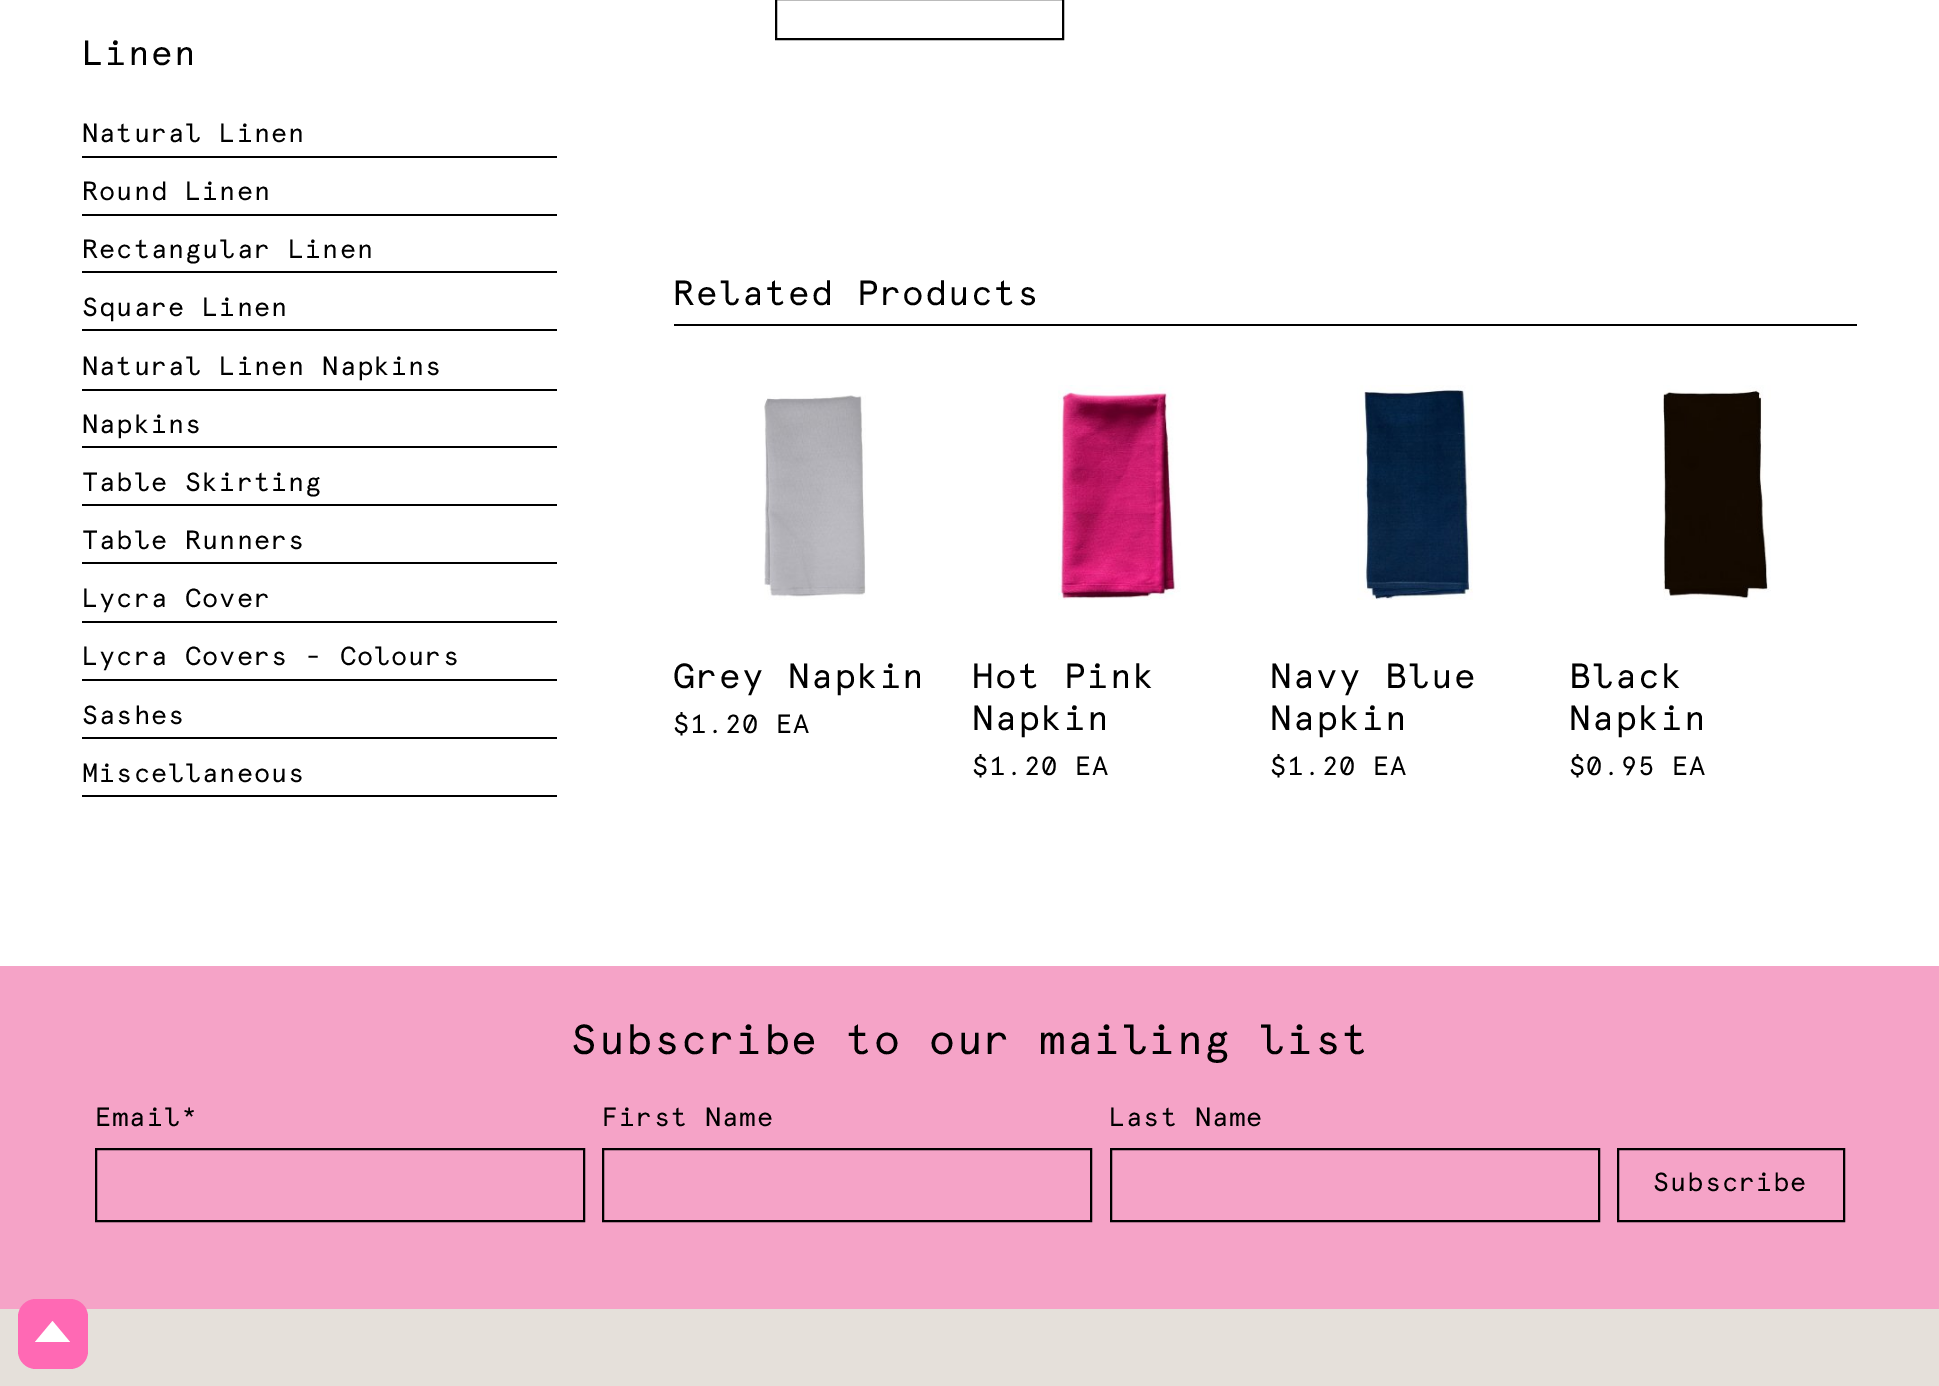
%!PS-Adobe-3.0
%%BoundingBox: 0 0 1939 1386
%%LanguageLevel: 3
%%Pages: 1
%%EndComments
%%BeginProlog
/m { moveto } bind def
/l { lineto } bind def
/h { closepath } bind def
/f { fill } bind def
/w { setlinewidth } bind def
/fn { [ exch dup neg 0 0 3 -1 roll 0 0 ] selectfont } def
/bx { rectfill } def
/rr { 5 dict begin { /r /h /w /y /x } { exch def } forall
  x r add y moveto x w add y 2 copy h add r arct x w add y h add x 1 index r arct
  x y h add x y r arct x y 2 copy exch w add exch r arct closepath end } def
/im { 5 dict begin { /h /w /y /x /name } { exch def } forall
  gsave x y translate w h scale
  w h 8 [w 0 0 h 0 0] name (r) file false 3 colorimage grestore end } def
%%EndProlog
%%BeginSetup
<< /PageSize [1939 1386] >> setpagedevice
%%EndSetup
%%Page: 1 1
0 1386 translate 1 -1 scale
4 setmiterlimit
1 setgray
0 0 1939 1386 bx
/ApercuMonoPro-Regular 35 fn
0 setgray
82 65 m 1.25 0 (Linen) ashow
82 156 475 2 bx
/ApercuMonoPro-Regular 26.25 fn
82 142 m 0.9 0 (Natural Linen) ashow
82 214 475 2 bx
82 200 m 0.9 0 (Round Linen) ashow
82 271 475 2 bx
82 258 m 0.9 0 (Rectangular Linen) ashow
82 329 475 2 bx
82 316 m 0.9 0 (Square Linen) ashow
82 389 475 2 bx
82 375 m 0.9 0 (Natural Linen Napkins) ashow
82 446 475 2 bx
82 433 m 0.9 0 (Napkins) ashow
82 504 475 2 bx
82 491 m 0.9 0 (Table Skirting) ashow
82 562 475 2 bx
82 549 m 0.9 0 (Table Runners) ashow
82 621 475 2 bx
82 607 m 0.9 0 (Lycra Cover) ashow
82 679 475 2 bx
82 665 m 0.9 0 (Lycra Covers - Colours) ashow
82 737 475 2 bx
82 724 m 0.9 0 (Sashes) ashow
82 795 475 2 bx
82 782 m 0.9 0 (Miscellaneous) ashow
2 w
776 -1 287 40 rectstroke
674 324 1183 2 bx
/ApercuMonoPro-Regular 35 fn
673 305 m 1.25 0 (Related Products) ashow
(image0.raw) 764 395 102 205 im
673 688 m 1.25 0 (Grey Napkin) ashow
/ApercuMonoPro-Regular 26.25 fn
673 733 m 0.9 0 ($1.20 EA) ashow
(image1.raw) 1058 385 123 215 im
/ApercuMonoPro-Regular 35 fn
972 688 m 1.25 0 (Hot Pink) ashow
972 730 m 1.25 0 (Napkin) ashow
/ApercuMonoPro-Regular 26.25 fn
972 775 m 0.9 0 ($1.20 EA) ashow
(image2.raw) 1357 385 116 215 im
/ApercuMonoPro-Regular 35 fn
1270 688 m 1.25 0 (Navy Blue) ashow
1270 730 m 1.25 0 (Napkin) ashow
/ApercuMonoPro-Regular 26.25 fn
1270 775 m 0.9 0 ($1.20 EA) ashow
(image3.raw) 1663 385 108 215 im
/ApercuMonoPro-Regular 35 fn
1569 688 m 1.25 0 (Black) ashow
1569 730 m 1.25 0 (Napkin) ashow
/ApercuMonoPro-Regular 26.25 fn
1569 775 m 0.9 0 ($0.95 EA) ashow
0.961 0.639 0.78 setrgbcolor
0 966 1939 343 bx
/ApercuMonoPro-Regular 42 fn
0 setgray
571 1054 m 1.5 0 (Subscribe to our mailing list) ashow
/ApercuMonoPro-Regular 26.25 fn
95 1126 m 0.9 0 (Email*) ashow
96 1149 488 72 rectstroke
602 1126 m 0.9 0 (First Name) ashow
603 1149 488 72 rectstroke
1109 1126 m 0.9 0 (Last Name) ashow
1111 1149 488 72 rectstroke
1618 1149 226 72 rectstroke
1653 1191 m 0.9 0 (Subscribe) ashow
0.898 0.878 0.855 setrgbcolor
0 1309 1939 77 bx
1 0.412 0.706 setrgbcolor
18 1299 70 70 18 rr f
1 setgray
70 1342 m 35 1342 l 52.5 1321 l h f
showpage
%%EOF
